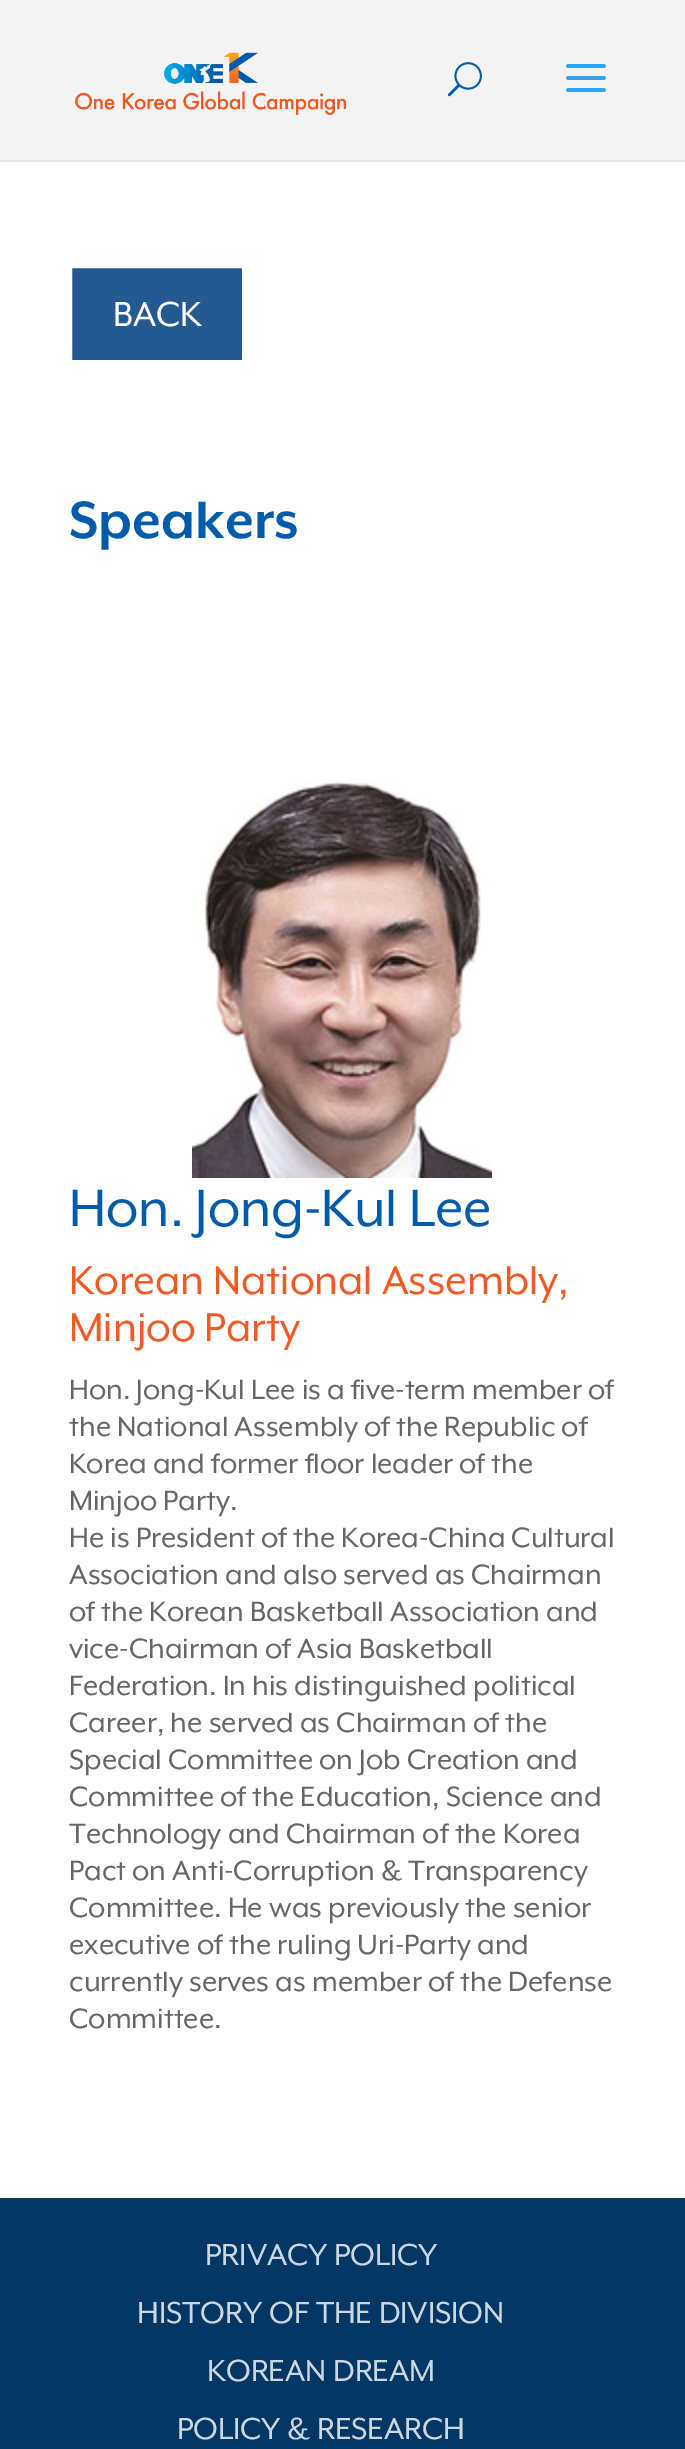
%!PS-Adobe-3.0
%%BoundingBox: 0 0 685 2449
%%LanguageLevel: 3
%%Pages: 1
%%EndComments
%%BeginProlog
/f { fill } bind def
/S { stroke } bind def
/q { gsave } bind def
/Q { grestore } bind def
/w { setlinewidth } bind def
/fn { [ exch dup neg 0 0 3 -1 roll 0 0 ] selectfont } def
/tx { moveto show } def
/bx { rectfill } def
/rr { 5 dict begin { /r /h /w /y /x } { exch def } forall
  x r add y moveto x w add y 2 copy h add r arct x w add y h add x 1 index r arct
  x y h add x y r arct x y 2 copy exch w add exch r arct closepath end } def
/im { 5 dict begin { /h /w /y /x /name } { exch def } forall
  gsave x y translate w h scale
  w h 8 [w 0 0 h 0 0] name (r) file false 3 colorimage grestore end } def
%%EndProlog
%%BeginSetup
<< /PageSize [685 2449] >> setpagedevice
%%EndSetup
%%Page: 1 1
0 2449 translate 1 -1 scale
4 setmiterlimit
1 setgray
0 0 685 2449 bx
0.902 setgray
0 160 685 2 bx
0.957 0.957 0.961 setrgbcolor
0 0 685 160 bx
(image0.raw) 75 52 271 63 im
(image1.raw) 447 62 35 35 im
(image2.raw) 566 64 40 28 im
0.141 0.353 0.569 setrgbcolor
70 266 174 96 2 rr q f Q
1 setgray
4 w
S
/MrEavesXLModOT-Regular 40 fn
(BACK) 113 326 tx
/MrEavesXLModOT-Bold 60.25 fn
0 0.357 0.667 setrgbcolor
(Speakers) 69 538 tx
(image3.raw) 192 778 300 400 im
/MrEavesXLModOT-Regular 60.25 fn
(Hon. Jong-Kul Lee) 69 1226 tx
/MrEavesXLModOT-Regular 46.25 fn
0.945 0.353 0.133 setrgbcolor
(Korean National Assembly,) 69 1294 tx
(Minjoo Party) 69 1341 tx
/MrEavesXLModOT-Regular 32.25 fn
0.4 setgray
(Hon. Jong-Kul Lee is a five-term member of) 69 1399 tx
(the National Assembly of the Republic of) 69 1436 tx
(Korea and former floor leader of the) 69 1473 tx
(Minjoo Party.) 69 1510 tx
(He is President of the Korea-China Cultural) 69 1547 tx
(Association and also served as Chairman) 69 1584 tx
(of the Korean Basketball Association and) 69 1621 tx
(vice-Chairman of Asia Basketball) 69 1658 tx
(Federation. In his distinguished political) 69 1695 tx
(Career, he served as Chairman of the) 69 1732 tx
(Special Committee on Job Creation and) 69 1769 tx
(Committee of the Education, Science and) 69 1806 tx
(Technology and Chairman of the Korea) 69 1843 tx
(Pact on Anti-Corruption & Transparency) 69 1880 tx
(Committee. He was previously the senior) 69 1917 tx
(executive of the ruling Uri-Party and) 69 1954 tx
(currently serves as member of the Defense) 69 1991 tx
(Committee.) 69 2028 tx
0.008 0.216 0.4 setrgbcolor
0 2198 685 251 bx
/MrEavesXLModOT-Regular 35 fn
0.8 0.843 0.878 setrgbcolor
(PRIVACY POLICY) 205 2265 tx
(HISTORY OF THE DIVISION) 137 2323 tx
(KOREAN DREAM) 207 2381 tx
(POLICY & RESEARCH) 177 2439 tx
showpage
%%EOF
